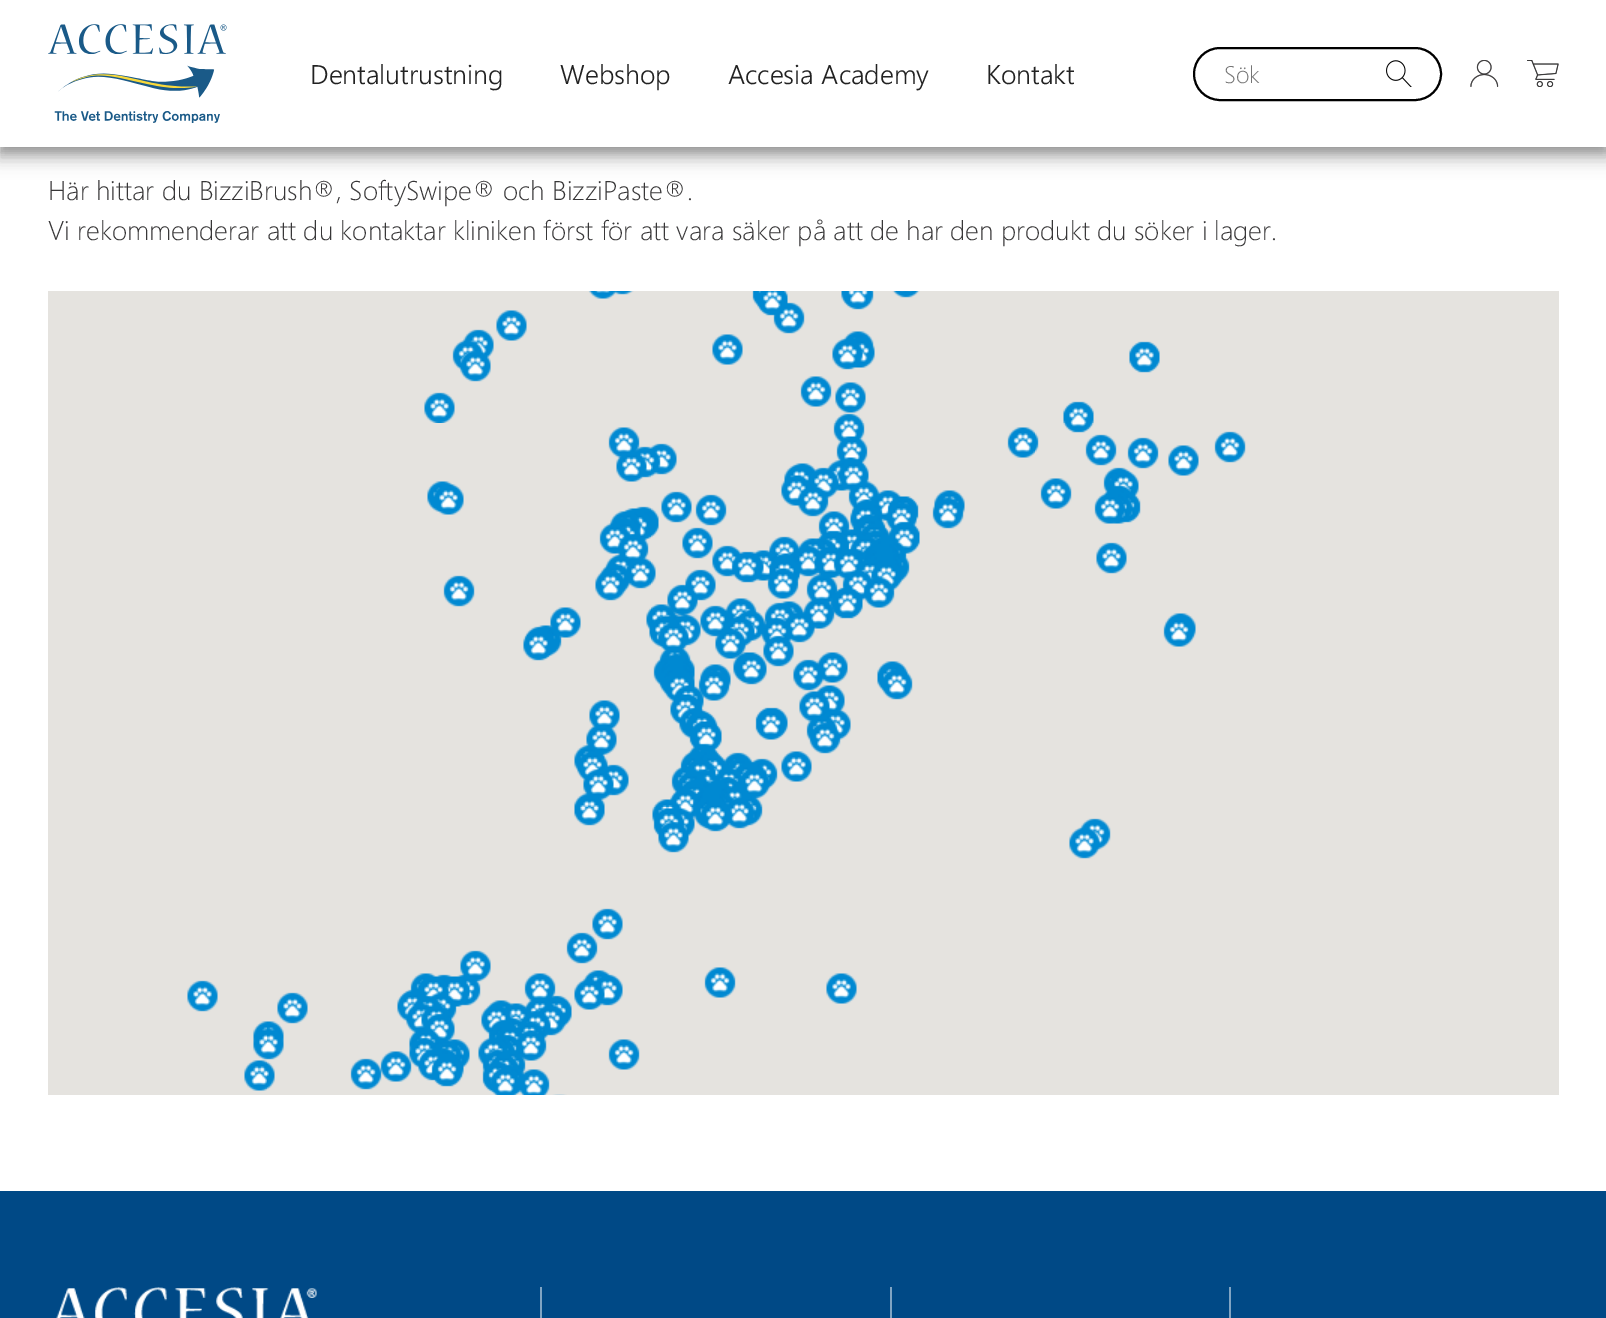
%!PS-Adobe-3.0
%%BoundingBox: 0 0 1606 1318
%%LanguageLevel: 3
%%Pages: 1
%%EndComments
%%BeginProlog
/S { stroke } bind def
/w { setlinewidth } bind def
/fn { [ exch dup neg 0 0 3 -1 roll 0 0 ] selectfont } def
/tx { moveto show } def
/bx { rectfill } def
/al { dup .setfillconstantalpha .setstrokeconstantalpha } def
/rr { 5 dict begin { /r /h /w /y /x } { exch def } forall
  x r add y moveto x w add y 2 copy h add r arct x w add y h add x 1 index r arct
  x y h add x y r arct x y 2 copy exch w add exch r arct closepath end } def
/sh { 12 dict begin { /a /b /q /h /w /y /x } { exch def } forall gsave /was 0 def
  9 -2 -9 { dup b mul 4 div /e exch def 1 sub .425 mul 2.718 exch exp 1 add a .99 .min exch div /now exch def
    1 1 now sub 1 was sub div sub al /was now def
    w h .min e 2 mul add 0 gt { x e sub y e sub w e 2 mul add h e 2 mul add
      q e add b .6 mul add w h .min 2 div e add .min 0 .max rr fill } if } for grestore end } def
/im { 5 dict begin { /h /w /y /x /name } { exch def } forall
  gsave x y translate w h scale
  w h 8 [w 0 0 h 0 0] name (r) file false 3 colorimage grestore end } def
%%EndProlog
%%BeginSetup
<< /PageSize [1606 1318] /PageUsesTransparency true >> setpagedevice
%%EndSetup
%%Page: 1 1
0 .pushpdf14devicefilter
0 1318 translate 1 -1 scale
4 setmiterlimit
1 setgray
0 0 1606 1318 bx
0 setgray
0 6 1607 147 0 4 0.2 sh
-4 0 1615 156 0 10.5 0.12 sh
-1 11 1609 150 0 7.5 0.14 sh
1 setgray
0 0 1606 147 bx
(image0.raw) 48 24 179 99 im
/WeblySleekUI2-Light 27 fn
0.133 setgray
(Dentalutrustning) 310 84 tx
(Webshop) 560 84 tx
(Accesia Academy) 728 84 tx
(Kontakt) 986 84 tx
0 setgray
2 w
1194 48 247 52 26 rr S
/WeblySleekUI-Light 24 fn
0.459 setgray
(Sök) 1224 83 tx
(image1.raw) 1386 60 26 27 im
(image2.raw) 1470 60 29 27 im
(image3.raw) 1527 60 32 27 im
/WeblySleekUI-Light 27 fn
0.22 0.216 0.22 setrgbcolor
(Här hittar du BizziBrush®, SoftySwipe® och BizziPaste®.) 48 200 tx
(Vi rekommenderar att du kontaktar kliniken först för att vara säker på att de har den produkt du söker i lager.) 48 240 tx
0.898 0.89 0.875 setrgbcolor
48 291 1511 804 bx
(image4.raw) 424 291 210 132 im
(image5.raw) 712 291 208 132 im
(image6.raw) 1063 341 97 82 im
(image7.raw) 427 427 224 380 im
(image8.raw) 651 423 384 384 im
(image9.raw) 1035 423 211 224 im
(image10.raw) 267 807 373 288 im
(image11.raw) 652 807 205 197 im
(image12.raw) 1069 818 42 41 im
(image13.raw) 187 980 80 111 im
0 0.286 0.525 setrgbcolor
0 1191 1606 127 bx
(image14.raw) 56 1287 261 31 im
0.502 0.643 0.765 setrgbcolor
540 1287 2 31 bx
890 1287 2 31 bx
1229 1287 2 31 bx
.poppdf14devicefilter showpage
%%EOF
